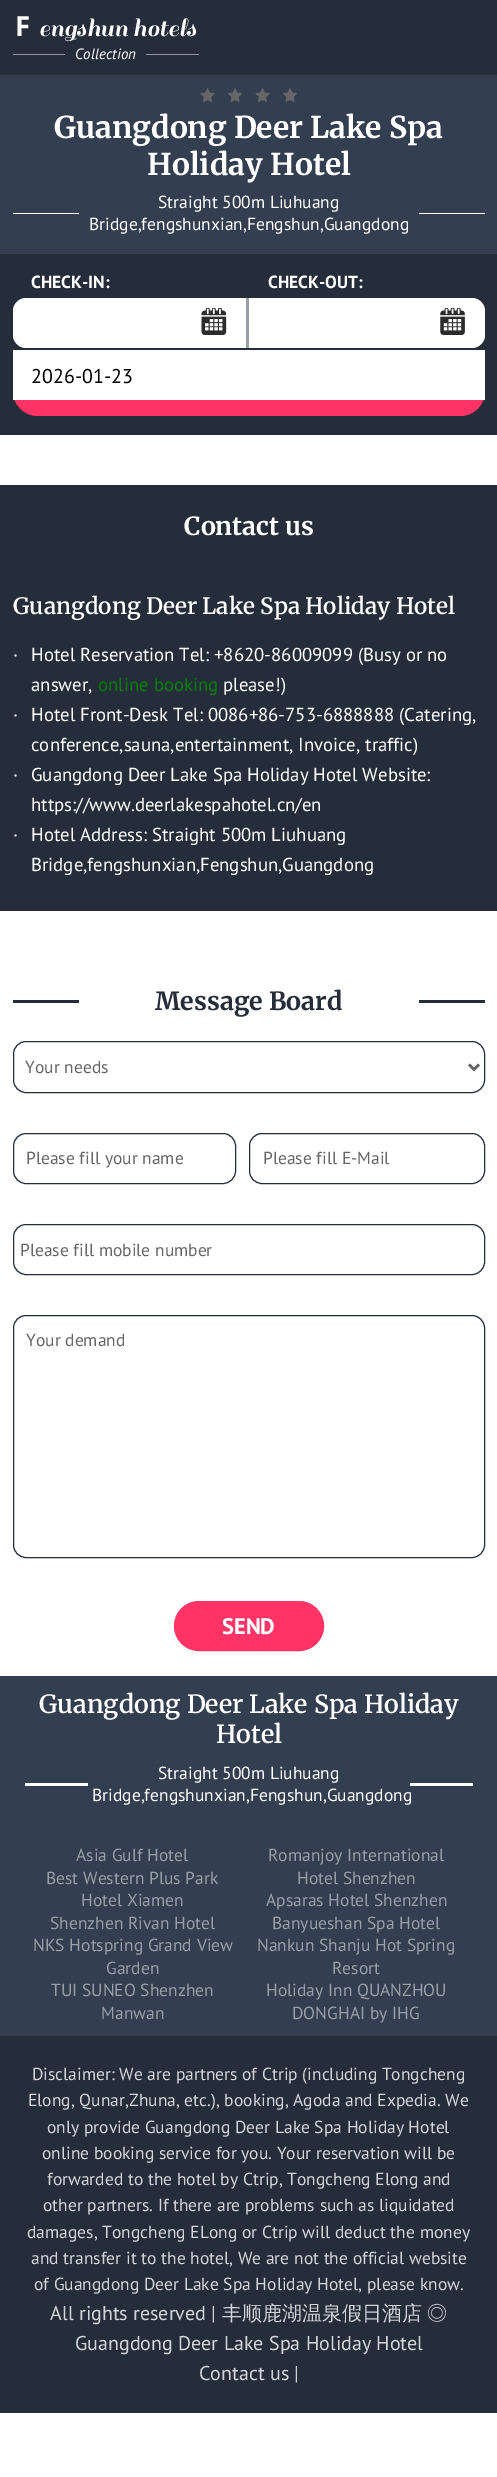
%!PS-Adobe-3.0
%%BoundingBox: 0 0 497 2477
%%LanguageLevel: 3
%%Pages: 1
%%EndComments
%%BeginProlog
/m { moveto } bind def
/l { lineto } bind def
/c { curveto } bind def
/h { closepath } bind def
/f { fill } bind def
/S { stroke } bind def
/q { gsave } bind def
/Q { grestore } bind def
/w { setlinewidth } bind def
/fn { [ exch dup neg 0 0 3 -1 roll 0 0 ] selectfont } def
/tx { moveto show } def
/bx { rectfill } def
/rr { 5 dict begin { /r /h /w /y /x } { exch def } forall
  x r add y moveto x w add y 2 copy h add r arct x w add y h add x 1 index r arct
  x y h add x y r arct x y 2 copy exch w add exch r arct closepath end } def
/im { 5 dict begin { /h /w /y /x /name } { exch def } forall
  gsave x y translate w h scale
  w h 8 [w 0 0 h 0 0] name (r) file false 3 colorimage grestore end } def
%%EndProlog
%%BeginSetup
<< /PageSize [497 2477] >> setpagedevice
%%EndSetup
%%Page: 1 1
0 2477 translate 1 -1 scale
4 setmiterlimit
1 setgray
0 0 497 2477 bx
0.145 0.176 0.227 setrgbcolor
0 0 497 75 bx
/NotoSans-Bold 27.5 fn
1 setgray
(F) 15 36 tx
/Sail-Regular 27.5 fn
(engshun hotels) 39 36 tx
0.573 0.588 0.616 setrgbcolor
13 54 52 1 bx
/PTSans-Italic 15 fn
1 setgray
(Collection) 75 59 tx
0.573 0.588 0.616 setrgbcolor
146 54 53 1 bx
0.2 0.243 0.314 setrgbcolor
0 75 497 179 bx
(image0.raw) 200 88 15 14 im
(image1.raw) 228 88 14 14 im
(image0.raw) 255 88 15 14 im
(image1.raw) 283 88 14 14 im
/Merriweather-Bold 30 fn
1 setgray
(Guangdong Deer Lake Spa) 54 138 tx
(Holiday Hotel) 147 175 tx
/PTSans-Regular 17.5 fn
(Straight 500m Liuhuang) 158 208 tx
13 213 66 1 bx
419 213 66 1 bx
(Bridge,fengshunxian,Fengshun,Guangdong) 89 230 tx
0.145 0.176 0.227 setrgbcolor
0 254 497 181 bx
/PTSans-Bold 17.5 fn
1 setgray
(CHECK-IN:) 31 288 tx
26 298 m 249 298 l 249 348 l 26 348 l 19 348 13 342 13 335 c 13 311 l 13 304 19 298 26 298 c h f
0.6 0.62 0.655 setrgbcolor
246 298 3 50 bx
(image2.raw) 201 308 26 27 im
1 setgray
(CHECK-OUT:) 268 288 tx
249 298 m 472 298 l 479 298 485 304 485 311 c 485 335 l 485 342 479 348 472 348 c 249 348 l h f
(image3.raw) 440 308 25 27 im
1 0.2 0.396 setrgbcolor
13 366 472 50 25 rr f
1 setgray
13 350 472 50 bx
/PTSans-Regular 20 fn
0 setgray
(2026-01-23) 31 383 tx
0.145 0.176 0.227 setrgbcolor
0 485 497 426 bx
/Merriweather-Bold 25 fn
1 setgray
(Contact us) 184 535 tx
/Merriweather-SemiBold 22.5 fn
(Guangdong Deer Lake Spa Holiday Hotel) 13 614 tx
/PTSans-Regular 18.75 fn
(·) 13 661 tx
(Hotel Reservation Tel: +8620-86009099 \(Busy or no) 31 661 tx
(answer,) 31 691 tx
0 0.502 0 setrgbcolor
(online booking) 98 691 tx
1 setgray
(please!\)) 223 691 tx
(·) 13 721 tx
(Hotel Front-Desk Tel: 0086+86-753-6888888 \(Catering,) 31 721 tx
(conference,sauna,entertainment, Invoice, traffic\)) 31 751 tx
(·) 13 781 tx
(Guangdong Deer Lake Spa Holiday Hotel Website:) 31 781 tx
(https://www.deerlakespahotel.cn/en) 31 811 tx
(·) 13 841 tx
(Hotel Address: Straight 500m Liuhuang) 31 841 tx
(Bridge,fengshunxian,Fengshun,Guangdong) 31 871 tx
0.145 0.176 0.227 setrgbcolor
13 1000 66 3 bx
/Merriweather-Bold 25 fn
(Message Board) 155 1010 tx
419 1000 66 3 bx
13.5 1041.5 471 51 12.5 rr S
0.4 setgray
2.5 w
469 1064.5 m 474 1069.5 l 479 1064.5 l S
/PTSans-Regular 17.5 fn
(Your needs) 25 1073 tx
0.145 0.176 0.227 setrgbcolor
1 w
13.5 1133.5 222 50 12.5 rr S
0.4 setgray
(Please fill your name) 26 1164 tx
0.145 0.176 0.227 setrgbcolor
249.5 1133.5 235 50 12.5 rr S
0.4 setgray
(Please fill E-Mail) 263 1164 tx
0.145 0.176 0.227 setrgbcolor
13.5 1224.5 471 50 12.5 rr S
0.4 setgray
(Please fill mobile number) 20 1256 tx
0.145 0.176 0.227 setrgbcolor
13.5 1315.5 471 242 12.5 rr S
0.4 setgray
(Your demand) 26 1346 tx
1 0.2 0.396 setrgbcolor
174.5 1601.5 149 49 24.5 rr q f Q
S
/PTSans-Bold 22.5 fn
1 setgray
(SEND) 222 1634 tx
0.145 0.176 0.227 setrgbcolor
0 2036 497 377 bx
0.2 0.243 0.314 setrgbcolor
0 1676 497 360 bx
/Merriweather-SemiBold 25 fn
1 setgray
(Guangdong Deer Lake Spa Holiday) 39 1713 tx
(Hotel) 216 1743 tx
/PTSans-Regular 17.5 fn
(Straight 500m Liuhuang) 158 1779 tx
25 1783 63 3 bx
410 1783 63 3 bx
(Bridge,fengshunxian,Fengshun,Guangdong) 92 1801 tx
0.6 0.62 0.655 setrgbcolor
(Asia Gulf Hotel) 76 1861 tx
(Romanjoy International) 268 1861 tx
(Hotel Shenzhen) 297 1884 tx
(Best Western Plus Park) 46 1884 tx
(Hotel Xiamen) 81 1906 tx
(Apsaras Hotel Shenzhen) 266 1906 tx
(Shenzhen Rivan Hotel) 50 1929 tx
(Banyueshan Spa Hotel) 272 1929 tx
(NKS Hotspring Grand View) 33 1951 tx
(Garden) 106 1974 tx
(Nankun Shanju Hot Spring) 257 1951 tx
(Resort) 332 1974 tx
(TUI SUNEO Shenzhen) 51 1996 tx
(Manwan) 101 2019 tx
(Holiday Inn QUANZHOU) 266 1996 tx
(DONGHAI by IHG) 292 2019 tx
0.827 0.835 0.847 setrgbcolor
(Disclaimer: We are partners of Ctrip \(including Tongcheng) 32 2080 tx
(Elong, Qunar,Zhuna, etc.\), booking, Agoda and Expedia. We) 28 2106 tx
(only provide Guangdong Deer Lake Spa Holiday Hotel) 47 2133 tx
(online booking service for you. Your reservation will be) 42 2159 tx
(forwarded to the hotel by Ctrip, Tongcheng Elong and) 47 2185 tx
(other partners. If there are problems such as liquidated) 43 2211 tx
(damages, Tongcheng ELong or Ctrip will deduct the money) 27 2238 tx
(and transfer it to the hotel, We are not the official website) 31 2264 tx
(of Guangdong Deer Lake Spa Holiday Hotel, please know.) 34 2290 tx
/PTSans-Regular 20 fn
(All rights reserved |) 50 2320 tx
/WenQuanYiZenHei-Medium 20 fn
(丰顺鹿湖温泉假日酒店) 222 2320 tx
(◎) 427 2320 tx
/PTSans-Regular 20 fn
(Guangdong Deer Lake Spa Holiday Hotel) 75 2350 tx
(Contact us |) 199 2380 tx
showpage
%%EOF
